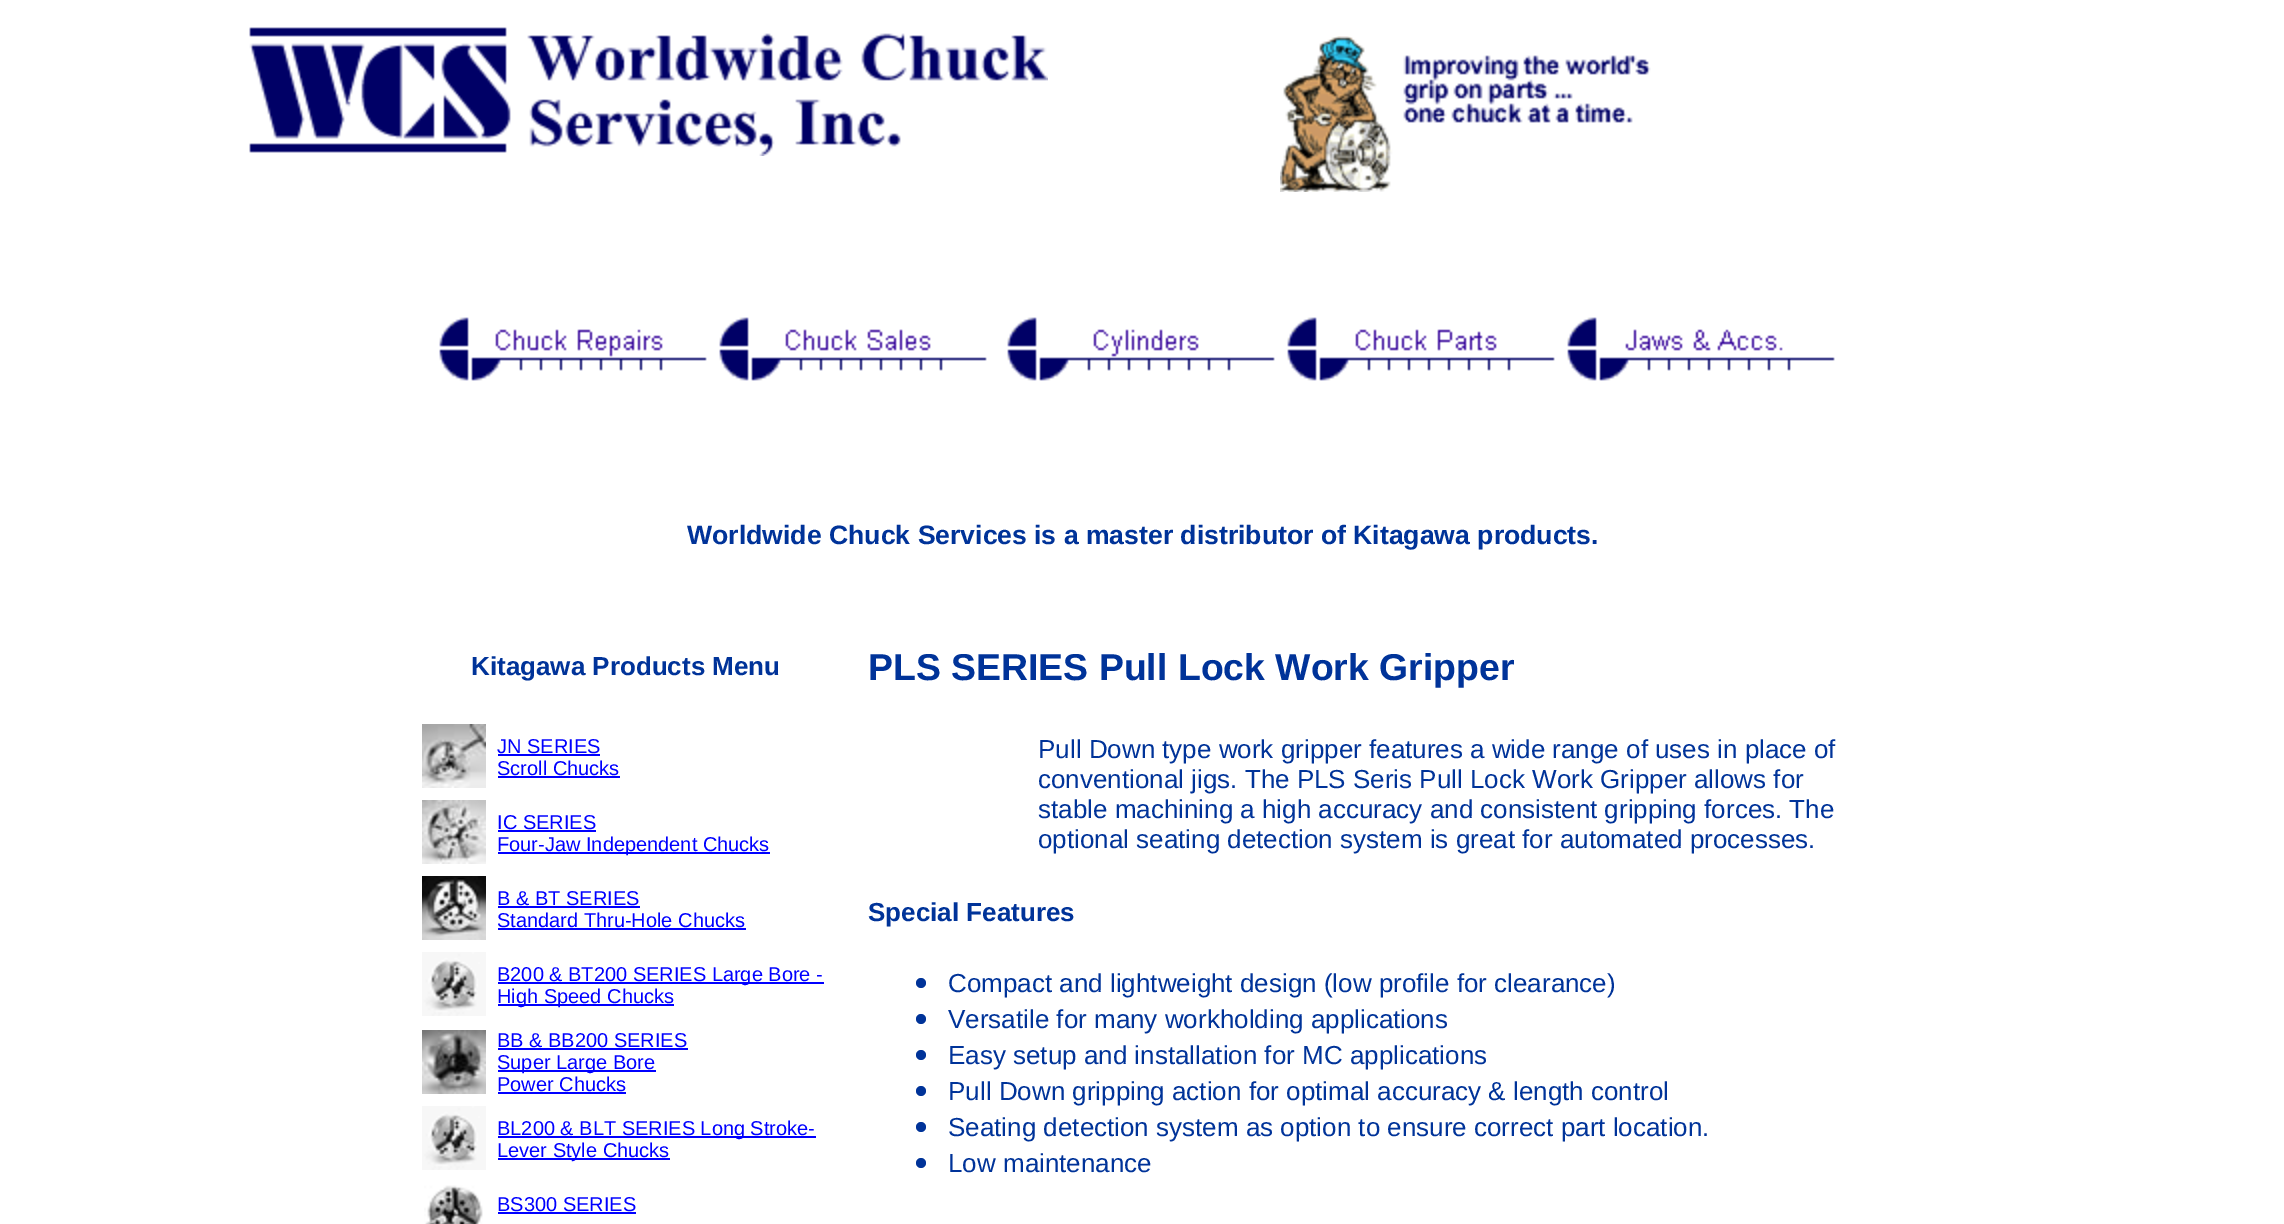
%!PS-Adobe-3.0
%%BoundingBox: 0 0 2284 1224
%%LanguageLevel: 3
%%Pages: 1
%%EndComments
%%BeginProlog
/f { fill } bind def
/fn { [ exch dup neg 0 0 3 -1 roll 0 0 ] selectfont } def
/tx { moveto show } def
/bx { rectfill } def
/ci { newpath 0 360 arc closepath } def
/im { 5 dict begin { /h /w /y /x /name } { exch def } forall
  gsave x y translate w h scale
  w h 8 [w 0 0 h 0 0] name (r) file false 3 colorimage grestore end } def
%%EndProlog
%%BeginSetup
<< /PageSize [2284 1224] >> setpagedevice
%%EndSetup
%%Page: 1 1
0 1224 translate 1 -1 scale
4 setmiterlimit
1 setgray
0 0 2284 1224 bx
(image0.raw) 249 27 799 129 im
(image1.raw) 1280 36 371 156 im
(image2.raw) 439 317 268 64 im
(image3.raw) 719 317 268 64 im
(image4.raw) 1007 317 268 64 im
(image5.raw) 1287 317 268 64 im
(image6.raw) 1567 317 268 64 im
/LiberationSans-Bold 26.6 fn
0 0.2 0.6 setrgbcolor
(Worldwide Chuck Services) 687 544 tx
(is a master distributor of Kitagawa products.) 1034 544 tx
/LiberationSans-Bold 26 fn
(Kitagawa Products Menu) 471 675 tx
(image7.raw) 422 724 64 64 im
/LiberationSans-Regular 20 fn
0 0 1 setrgbcolor
(JN SERIES) 497 753 tx
498 754 102 2 bx
(Scroll Chucks) 497 775 tx
498 776 122 2 bx
(image8.raw) 422 800 64 64 im
(IC SERIES) 497 829 tx
498 830 98 2 bx
498 852 272 2 bx
(Four-Jaw Independent Chucks) 497 851 tx
(image9.raw) 422 876 64 64 im
(B & BT SERIES) 497 905 tx
498 906 142 2 bx
(Standard Thru-Hole Chucks) 497 927 tx
498 928 248 2 bx
(image10.raw) 422 952 64 64 im
498 982 326 2 bx
(B200 & BT200 SERIES Large Bore -) 497 981 tx
498 1004 176 2 bx
(High Speed Chucks) 497 1003 tx
(image11.raw) 422 1030 64 64 im
(BB & BB200 SERIES) 497 1047 tx
498 1048 190 2 bx
498 1070 158 2 bx
(Super Large Bore) 497 1069 tx
(Power Chucks) 497 1091 tx
498 1092 128 2 bx
(image10.raw) 422 1106 64 64 im
498 1136 318 2 bx
(BL200 & BLT SERIES Long Stroke-) 497 1135 tx
498 1158 172 2 bx
(Lever Style Chucks) 497 1157 tx
(image12.raw) 424 1185 59 39 im
(BS300 SERIES) 497 1211 tx
498 1212 138 2 bx
/LiberationSans-Bold 37.4 fn
0 0.2 0.6 setrgbcolor
(PLS SERIES Pull Lock Work Gripper) 868 680 tx
/LiberationSans-Regular 26 fn
(Pull Down type work gripper features a wide range of uses in place of) 1038 758 tx
(conventional jigs. The PLS Seris Pull Lock Work Gripper allows for) 1038 788 tx
(stable machining a high accuracy and consistent gripping forces. The) 1038 818 tx
(optional seating detection system is great for automated processes.) 1038 848 tx
/LiberationSans-Bold 26 fn
(Special Features) 868 921 tx
921 983 5 ci f
/LiberationSans-Regular 26 fn
(Compact and lightweight design \(low profile for clearance\)) 948 992 tx
921 1019 5 ci f
(Versatile for many workholding applications) 948 1028 tx
921 1055 5 ci f
(Easy setup and installation for MC applications) 948 1064 tx
921 1091 5 ci f
(Pull Down gripping action for optimal accuracy & length control) 948 1100 tx
921 1127 5 ci f
(Seating detection system as option to ensure correct part location.) 948 1136 tx
921 1163 5 ci f
(Low maintenance) 948 1172 tx
showpage
%%EOF
